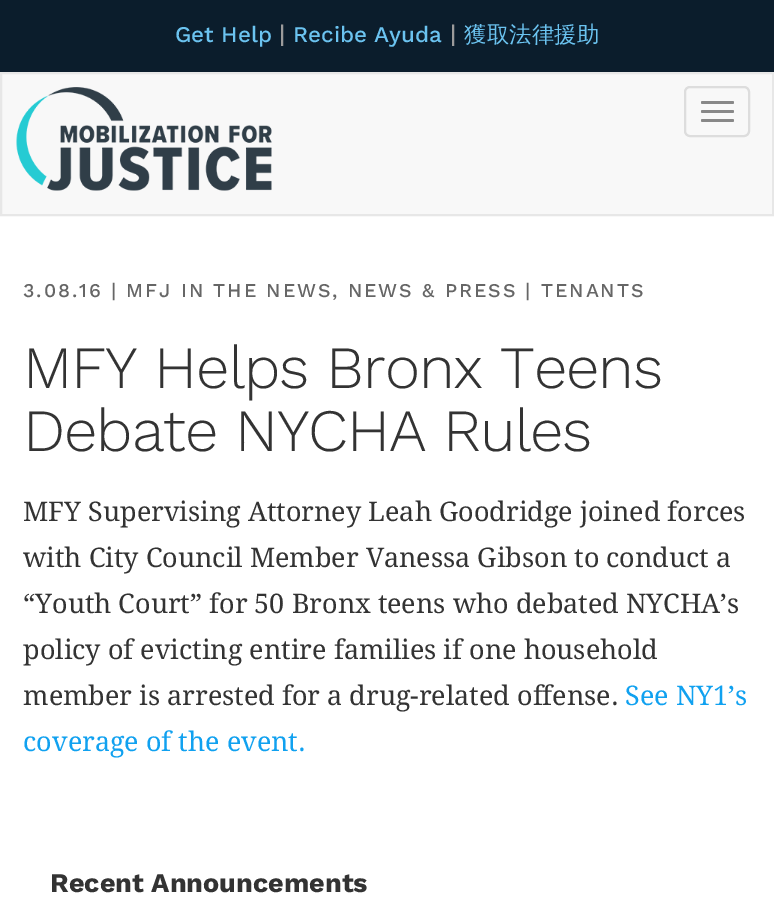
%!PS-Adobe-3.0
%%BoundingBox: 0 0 774 916
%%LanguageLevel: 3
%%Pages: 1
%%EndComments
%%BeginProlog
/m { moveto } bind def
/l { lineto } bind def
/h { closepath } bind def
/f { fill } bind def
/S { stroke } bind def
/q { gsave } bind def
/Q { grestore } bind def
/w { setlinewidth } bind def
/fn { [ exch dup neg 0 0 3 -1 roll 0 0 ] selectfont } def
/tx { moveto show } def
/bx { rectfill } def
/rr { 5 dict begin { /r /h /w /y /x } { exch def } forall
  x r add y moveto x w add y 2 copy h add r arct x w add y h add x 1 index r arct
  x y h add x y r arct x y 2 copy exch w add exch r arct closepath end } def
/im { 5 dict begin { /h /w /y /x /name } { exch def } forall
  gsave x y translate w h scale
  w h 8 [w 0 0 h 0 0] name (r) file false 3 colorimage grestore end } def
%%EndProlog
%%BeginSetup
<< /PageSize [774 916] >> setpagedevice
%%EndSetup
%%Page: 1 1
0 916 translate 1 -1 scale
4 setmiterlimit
1 setgray
0 0 774 916 bx
0.043 0.114 0.173 setrgbcolor
0 0 774 72 bx
/WorkSans-Medium 22.5 fn
0.42 0.765 0.941 setrgbcolor
(Get Help) 175 42 tx
/WorkSans-Medium 24 fn
0.612 0.608 0.608 setrgbcolor
(|) 279 42 tx
/WorkSans-Medium 22.5 fn
0.42 0.765 0.941 setrgbcolor
(Recibe Ayuda) 293 42 tx
/WorkSans-Medium 24 fn
0.612 0.608 0.608 setrgbcolor
(|) 450 42 tx
/WenQuanYiZenHei-Medium 22.5 fn
0.42 0.765 0.941 setrgbcolor
(獲取法律援助) 464 42 tx
0.973 setgray
1 73 m 773 73 l 773 215 l 1 215 l h q f Q
0.906 setgray
2 w
S
(image0.raw) 16 87 256 104 im
0.867 setgray
685 87 64 49 5 rr S
0.533 setgray
701 101 33 3 1.5 rr f
701 110 33 3 1.5 rr f
701 119 33 3 1.5 rr f
/WorkSans-Medium 19.5 fn
0.4 setgray
23 297 m 1.95 0 (3.08.16 | MFJ IN THE NEWS, NEWS & PRESS | TENANTS) ashow
/WorkSans-Light 60 fn
0.2 setgray
23 388 m -1.1 0 (MFY Helps Bronx Teens) ashow
23 451 m -1.1 0 (Debate NYCHA Rules) ashow
/DroidSerif-Regular 27 fn
(MFY Supervising Attorney Leah Goodridge joined forces) 23 521 tx
(with City Council Member Vanessa Gibson to conduct a) 23 567 tx
(“Youth Court” for 50 Bronx teens who debated NYCHA’s) 23 613 tx
(policy of evicting entire families if one household) 23 659 tx
(member is arrested for a drug-related offense.) 23 705 tx
0.063 0.631 0.941 setrgbcolor
(See NY1’s) 625 705 tx
(coverage of the event.) 23 751 tx
/WorkSans-Bold 27 fn
0.2 setgray
(Recent Announcements) 50 892 tx
showpage
%%EOF
